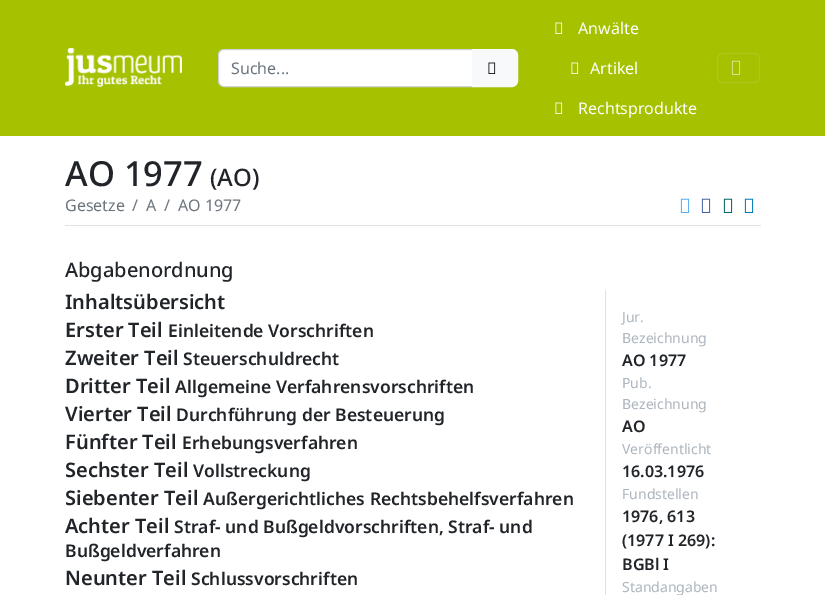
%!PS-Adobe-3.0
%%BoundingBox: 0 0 825 595
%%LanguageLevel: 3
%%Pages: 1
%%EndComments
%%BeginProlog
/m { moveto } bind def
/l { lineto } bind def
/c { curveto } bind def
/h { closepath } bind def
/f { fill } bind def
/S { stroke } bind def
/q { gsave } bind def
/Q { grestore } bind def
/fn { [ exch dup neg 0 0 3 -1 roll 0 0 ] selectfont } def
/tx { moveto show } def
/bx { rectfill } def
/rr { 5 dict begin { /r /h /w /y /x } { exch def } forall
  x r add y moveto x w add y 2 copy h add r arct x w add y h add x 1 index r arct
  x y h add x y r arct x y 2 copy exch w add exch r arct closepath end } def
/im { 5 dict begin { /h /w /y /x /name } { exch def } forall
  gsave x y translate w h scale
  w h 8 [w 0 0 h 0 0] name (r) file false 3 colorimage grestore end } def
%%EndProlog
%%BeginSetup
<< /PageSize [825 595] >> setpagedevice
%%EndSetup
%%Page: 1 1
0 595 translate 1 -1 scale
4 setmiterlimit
1 setgray
0 0 825 595 bx
0.647 0.757 0 setrgbcolor
0 0 825 136 bx
(image0.raw) 65 48 117 39 im
1 setgray
224 49.5 m 472.5 49.5 l 472.5 86.5 l 224 86.5 l 221 86.5 218.5 84 218.5 81 c 218.5 55 l 218.5 52 221 49.5 224 49.5 c h q f Q
0.808 0.831 0.855 setrgbcolor
S
/NotoSans-Regular 16 fn
0.424 0.459 0.49 setrgbcolor
(Suche...) 231 74 tx
0.973 0.976 0.98 setrgbcolor
472.5 49.5 m 512 49.5 l 515 49.5 517.5 52 517.5 55 c 517.5 81 l 517.5 84 515 86.5 512 86.5 c 472.5 86.5 l h q f Q
S
(image1.raw) 488 62 8 12 im
(image2.raw) 555 22 8 12 im
1 setgray
(Anwälte) 578 34 tx
(image2.raw) 571 62 8 12 im
(Artikel) 590 74 tx
(image2.raw) 555 102 8 12 im
(Rechtsprodukte) 578 114 tx
0.682 0.78 0.102 setrgbcolor
717.5 53.5 42 29 5.5 rr S
(image3.raw) 731 60 10 15 im
/NotoSans-Medium 34.5 fn
0.129 0.145 0.161 setrgbcolor
(AO 1977) 65 186 tx
/NotoSans-Medium 24 fn
(\(AO\)) 210 186 tx
0.871 0.886 0.902 setrgbcolor
65 225 696 1 bx
/NotoSans-Regular 16 fn
0.424 0.459 0.49 setrgbcolor
(Gesetze) 65 211 tx
(/) 132 211 tx
(A) 146 211 tx
(/) 164 211 tx
(AO 1977) 178 211 tx
(image4.raw) 680 198 10 15 im
(image5.raw) 701 198 10 15 im
(image6.raw) 723 198 10 15 im
(image7.raw) 744 198 10 15 im
/NotoSans-Medium 20 fn
0.129 0.145 0.161 setrgbcolor
(Abgabenordnung) 65 277 tx
/NotoSans-SemiBold 20 fn
(Inhaltsübersicht) 65 309 tx
(Erster Teil) 65 337 tx
/NotoSans-SemiBold 17.5 fn
(Einleitende Vorschriften) 168 337 tx
/NotoSans-SemiBold 20 fn
(Zweiter Teil) 65 365 tx
/NotoSans-SemiBold 17.5 fn
(Steuerschuldrecht) 183 365 tx
/NotoSans-SemiBold 20 fn
(Dritter Teil) 65 393 tx
/NotoSans-SemiBold 17.5 fn
(Allgemeine Verfahrensvorschriften) 175 393 tx
/NotoSans-SemiBold 20 fn
(Vierter Teil) 65 421 tx
/NotoSans-SemiBold 17.5 fn
(Durchführung der Besteuerung) 176 421 tx
/NotoSans-SemiBold 20 fn
(Fünfter Teil) 65 449 tx
/NotoSans-SemiBold 17.5 fn
(Erhebungsverfahren) 182 449 tx
/NotoSans-SemiBold 20 fn
(Sechster Teil) 65 477 tx
/NotoSans-SemiBold 17.5 fn
(Vollstreckung) 193 477 tx
/NotoSans-SemiBold 20 fn
(Siebenter Teil) 65 505 tx
/NotoSans-SemiBold 17.5 fn
(Außergerichtliches Rechtsbehelfsverfahren) 203 505 tx
/NotoSans-SemiBold 20 fn
(Achter Teil) 65 533 tx
/NotoSans-SemiBold 17.5 fn
(Straf- und Bußgeldvorschriften, Straf- und) 174 533 tx
(Bußgeldverfahren) 65 557 tx
/NotoSans-SemiBold 20 fn
(Neunter Teil) 65 585 tx
/NotoSans-SemiBold 17.5 fn
(Schlussvorschriften) 191 585 tx
0.871 0.886 0.902 setrgbcolor
605 290 1 305 bx
/NotoSans-Regular 14 fn
0.678 0.71 0.741 setrgbcolor
(Jur.) 622 322 tx
(Bezeichnung) 622 343 tx
/NotoSans-SemiBold 16 fn
0.129 0.145 0.161 setrgbcolor
(AO 1977) 622 366 tx
/NotoSans-Regular 14 fn
0.678 0.71 0.741 setrgbcolor
(Pub.) 622 388 tx
(Bezeichnung) 622 409 tx
/NotoSans-SemiBold 16 fn
0.129 0.145 0.161 setrgbcolor
(AO) 622 432 tx
/NotoSans-Regular 14 fn
0.678 0.71 0.741 setrgbcolor
(Veröffentlicht) 622 454 tx
/NotoSans-SemiBold 16 fn
0.129 0.145 0.161 setrgbcolor
(16.03.1976) 622 477 tx
/NotoSans-Regular 14 fn
0.678 0.71 0.741 setrgbcolor
(Fundstellen) 622 499 tx
/NotoSans-SemiBold 16 fn
0.129 0.145 0.161 setrgbcolor
(1976, 613) 622 522 tx
(\(1977 I 269\):) 622 546 tx
(BGBl I) 622 570 tx
/NotoSans-Regular 14 fn
0.678 0.71 0.741 setrgbcolor
(Standangaben) 622 592 tx
showpage
%%EOF
